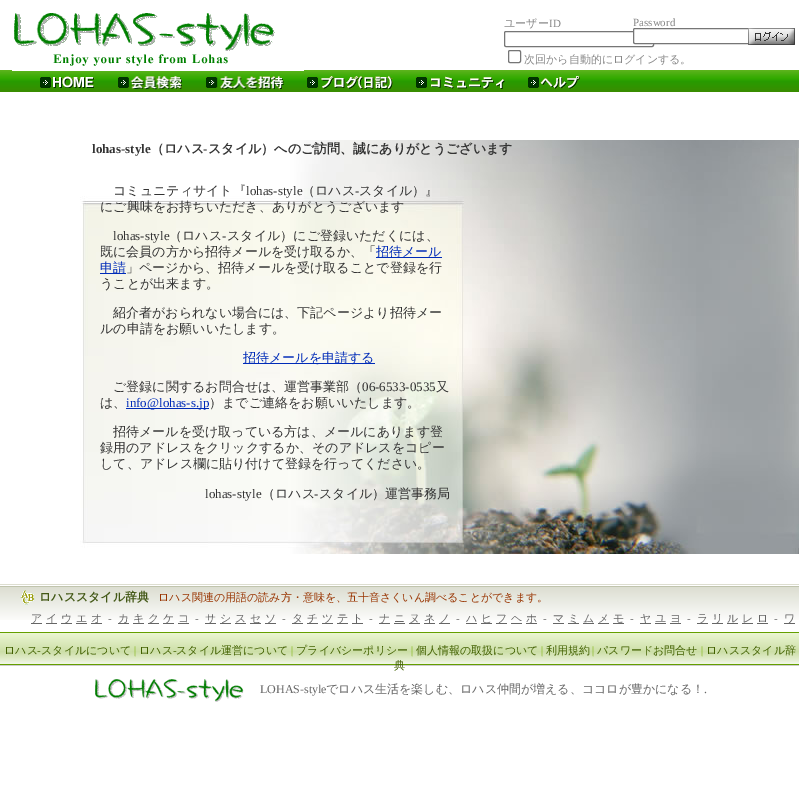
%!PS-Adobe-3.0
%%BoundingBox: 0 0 812 786
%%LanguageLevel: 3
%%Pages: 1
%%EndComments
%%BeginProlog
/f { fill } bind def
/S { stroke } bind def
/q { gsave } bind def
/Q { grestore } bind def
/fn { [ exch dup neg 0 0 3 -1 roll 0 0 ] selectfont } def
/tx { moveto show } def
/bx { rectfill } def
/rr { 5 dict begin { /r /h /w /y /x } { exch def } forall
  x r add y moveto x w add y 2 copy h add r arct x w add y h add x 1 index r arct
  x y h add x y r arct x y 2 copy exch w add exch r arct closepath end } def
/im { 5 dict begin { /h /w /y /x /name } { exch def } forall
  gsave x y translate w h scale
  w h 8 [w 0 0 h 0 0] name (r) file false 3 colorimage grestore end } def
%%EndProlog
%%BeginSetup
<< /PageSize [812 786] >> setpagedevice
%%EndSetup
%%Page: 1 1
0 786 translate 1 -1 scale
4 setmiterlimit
1 setgray
0 0 812 786 bx
(image2.raw) 0 70 799 22 im
(image0.raw) 12 13 292 58 im
/WenQuanYiZenHei-Medium 11 fn
0.533 setgray
(ユーザー) 504 27 tx
/LiberationSerif-Regular 11 fn
(ID) 549 27 tx
0.463 setgray
504.5 31.5 149 15 1.5 rr S
0.533 setgray
(Password) 633 26 tx
1 setgray
633.5 28.5 123 15 1.5 rr q f Q
0.463 setgray
S
(image1.raw) 748 28 47 17 im
508.5 50.5 12 12 1.5 rr S
/WenQuanYiZenHei-Medium 11 fn
0.533 setgray
(次回から自動的にログインする。) 524 63 tx
(image3.raw) 40 76 55 12 im
(image4.raw) 118 76 64 14 im
(image5.raw) 206 76 78 14 im
(image6.raw) 307 76 86 14 im
(image7.raw) 416 76 89 14 im
(image8.raw) 528 76 52 13 im
(image9.raw) 80 140 719 414 im
/LiberationSerif-Bold 13 fn
0.2 setgray
(lohas-style) 92 153 tx
/WenQuanYiZenHei-Bold 13 fn
(（ロハス) 151 153 tx
/LiberationSerif-Bold 13 fn
(-) 203 153 tx
/WenQuanYiZenHei-Bold 13 fn
(スタイル）へのご訪問、誠にありがとうございます) 208 153 tx
/WenQuanYiZenHei-Medium 13 fn
(コミュニティサイト『) 113 195 tx
/LiberationSerif-Regular 13 fn
(lohas-style) 246 195 tx
/WenQuanYiZenHei-Medium 13 fn
(（ロハス) 302 195 tx
/LiberationSerif-Regular 13 fn
(-) 355 195 tx
/WenQuanYiZenHei-Medium 13 fn
(スタイル）』) 359 195 tx
(にご興味をお持ちいただき、ありがとうございます) 100 211 tx
/LiberationSerif-Regular 13 fn
(lohas-style) 113 240 tx
/WenQuanYiZenHei-Medium 13 fn
(（ロハス) 169 240 tx
/LiberationSerif-Regular 13 fn
(-) 222 240 tx
/WenQuanYiZenHei-Medium 13 fn
(スタイル）にご登録いただくには、) 227 240 tx
(既に会員の方から招待メールを受け取るか、「) 100 256 tx
0 0.169 0.722 setrgbcolor
376 257 66 1 bx
(招待メール) 376 256 tx
100 273 26 1 bx
(申請) 100 272 tx
0.2 setgray
(」ページから、招待メールを受け取ることで登録を行) 126 272 tx
(うことが出来ます。) 100 288 tx
(紹介者がおられない場合には、下記ページより招待メー) 113 317 tx
(ルの申請をお願いいたします。) 100 333 tx
0 0.169 0.722 setrgbcolor
243 363 132 1 bx
(招待メールを申請する) 243 362 tx
0.2 setgray
(ご登録に関するお問合せは、運営事業部（) 113 391 tx
/LiberationSerif-Regular 13 fn
(06-6533-0535) 362 391 tx
/WenQuanYiZenHei-Medium 13 fn
(又) 436 391 tx
(は、) 100 407 tx
0 0.169 0.722 setrgbcolor
126 408 83 1 bx
/LiberationSerif-Regular 13 fn
(info@lohas-s.jp) 126 407 tx
/WenQuanYiZenHei-Medium 13 fn
0.2 setgray
(）までご連絡をお願いいたします。) 209 407 tx
(招待メールを受け取っている方は、メールにあります登) 113 436 tx
(録用のアドレスをクリックするか、そのアドレスをコピー) 100 452 tx
(して、アドレス欄に貼り付けて登録を行ってください。) 100 468 tx
/LiberationSerif-Regular 13 fn
(lohas-style) 205 498 tx
/WenQuanYiZenHei-Medium 13 fn
(（ロハス) 262 498 tx
/LiberationSerif-Regular 13 fn
(-) 314 498 tx
/WenQuanYiZenHei-Medium 13 fn
(スタイル）運営事務局) 319 498 tx
(image10.raw) 0 584 799 36 im
(image11.raw) 20 590 15 15 im
/WenQuanYiZenHei-Bold 12 fn
0.263 0.345 0.086 setrgbcolor
(ロハススタイル辞典) 39 601 tx
/WenQuanYiZenHei-Medium 11 fn
0.6 0.2 0 setrgbcolor
(ロハス関連の用語の読み方・意味を、五十音さくいん調べることができます。) 158 601 tx
0.4 setgray
(ア) 31 622 tx
31 623 11 1 bx
46 623 11 1 bx
(イ) 46 622 tx
61 623 11 1 bx
(ウ) 61 622 tx
(エ) 76 622 tx
76 623 11 1 bx
91 623 11 1 bx
(オ) 91 622 tx
/LiberationSerif-Regular 11 fn
(-) 108 622 tx
/WenQuanYiZenHei-Medium 11 fn
(カ) 118 622 tx
118 623 11 1 bx
133 623 11 1 bx
(キ) 133 622 tx
148 623 11 1 bx
(ク) 148 622 tx
163 623 11 1 bx
(ケ) 163 622 tx
(コ) 178 622 tx
178 623 11 1 bx
/LiberationSerif-Regular 11 fn
(-) 195 622 tx
205 623 11 1 bx
/WenQuanYiZenHei-Medium 11 fn
(サ) 205 622 tx
(シ) 220 622 tx
220 623 11 1 bx
(ス) 235 622 tx
235 623 11 1 bx
(セ) 250 622 tx
250 623 11 1 bx
265 623 11 1 bx
(ソ) 265 622 tx
/LiberationSerif-Regular 11 fn
(-) 282 622 tx
292 623 11 1 bx
/WenQuanYiZenHei-Medium 11 fn
(タ) 292 622 tx
307 623 11 1 bx
(チ) 307 622 tx
(ツ) 322 622 tx
322 623 11 1 bx
337 623 11 1 bx
(テ) 337 622 tx
352 623 11 1 bx
(ト) 352 622 tx
/LiberationSerif-Regular 11 fn
(-) 369 622 tx
379 623 11 1 bx
/WenQuanYiZenHei-Medium 11 fn
(ナ) 379 622 tx
(ニ) 394 622 tx
394 623 11 1 bx
409 623 11 1 bx
(ヌ) 409 622 tx
424 623 11 1 bx
(ネ) 424 622 tx
(ノ) 439 622 tx
439 623 11 1 bx
/LiberationSerif-Regular 11 fn
(-) 456 622 tx
/WenQuanYiZenHei-Medium 11 fn
(ハ) 466 622 tx
466 623 11 1 bx
(ヒ) 481 622 tx
481 623 11 1 bx
496 623 11 1 bx
(フ) 496 622 tx
(ヘ) 511 622 tx
511 623 11 1 bx
526 623 11 1 bx
(ホ) 526 622 tx
/LiberationSerif-Regular 11 fn
(-) 543 622 tx
/WenQuanYiZenHei-Medium 11 fn
(マ) 553 622 tx
553 623 11 1 bx
(ミ) 568 622 tx
568 623 11 1 bx
(ム) 583 622 tx
583 623 11 1 bx
(メ) 598 622 tx
598 623 11 1 bx
(モ) 613 622 tx
613 623 11 1 bx
/LiberationSerif-Regular 11 fn
(-) 630 622 tx
640 623 11 1 bx
/WenQuanYiZenHei-Medium 11 fn
(ヤ) 640 622 tx
(ユ) 655 622 tx
655 623 11 1 bx
(ヨ) 670 622 tx
670 623 11 1 bx
/LiberationSerif-Regular 11 fn
(-) 687 622 tx
697 623 11 1 bx
/WenQuanYiZenHei-Medium 11 fn
(ラ) 697 622 tx
712 623 11 1 bx
(リ) 712 622 tx
(ル) 727 622 tx
727 623 11 1 bx
(レ) 742 622 tx
742 623 11 1 bx
(ロ) 757 622 tx
757 623 11 1 bx
/LiberationSerif-Regular 11 fn
(-) 774 622 tx
784 623 11 1 bx
/WenQuanYiZenHei-Medium 11 fn
(ワ) 784 622 tx
(image12.raw) 0 632 799 34 im
0.255 0.376 0 setrgbcolor
(ロハス) 4 654 tx
/LiberationSerif-Regular 11 fn
(-) 37 654 tx
/WenQuanYiZenHei-Medium 11 fn
(スタイルについて) 41 654 tx
/LiberationSerif-Regular 11 fn
0.467 0.69 0 setrgbcolor
(|) 134 654 tx
/WenQuanYiZenHei-Medium 11 fn
0.255 0.376 0 setrgbcolor
(ロハス) 139 654 tx
/LiberationSerif-Regular 11 fn
(-) 173 654 tx
/WenQuanYiZenHei-Medium 11 fn
(スタイル運営について) 176 654 tx
/LiberationSerif-Regular 11 fn
0.467 0.69 0 setrgbcolor
(|) 291 654 tx
/WenQuanYiZenHei-Medium 11 fn
0.255 0.376 0 setrgbcolor
(プライバシーポリシー) 296 654 tx
/LiberationSerif-Regular 11 fn
0.467 0.69 0 setrgbcolor
(|) 411 654 tx
/WenQuanYiZenHei-Medium 11 fn
0.255 0.376 0 setrgbcolor
(個人情報の取扱について) 416 654 tx
/LiberationSerif-Regular 11 fn
0.467 0.69 0 setrgbcolor
(|) 541 654 tx
/WenQuanYiZenHei-Medium 11 fn
0.255 0.376 0 setrgbcolor
(利用規約) 546 654 tx
/LiberationSerif-Regular 11 fn
0.467 0.69 0 setrgbcolor
(|) 592 654 tx
/WenQuanYiZenHei-Medium 11 fn
0.255 0.376 0 setrgbcolor
(パスワードお問合せ) 597 654 tx
/LiberationSerif-Regular 11 fn
0.467 0.69 0 setrgbcolor
(|) 701 654 tx
/WenQuanYiZenHei-Medium 11 fn
0.255 0.376 0 setrgbcolor
(ロハススタイル辞) 706 654 tx
(典) 394 669 tx
(image13.raw) 95 679 149 23 im
/LiberationSerif-Regular 12 fn
0.4 setgray
(LOHAS-style) 260 693 tx
/WenQuanYiZenHei-Medium 12 fn
(でロハス生活を楽しむ、ロハス仲間が増える、ココロが豊かになる！) 326 693 tx
/LiberationSerif-Regular 12 fn
(.) 704 693 tx
showpage
%%EOF
